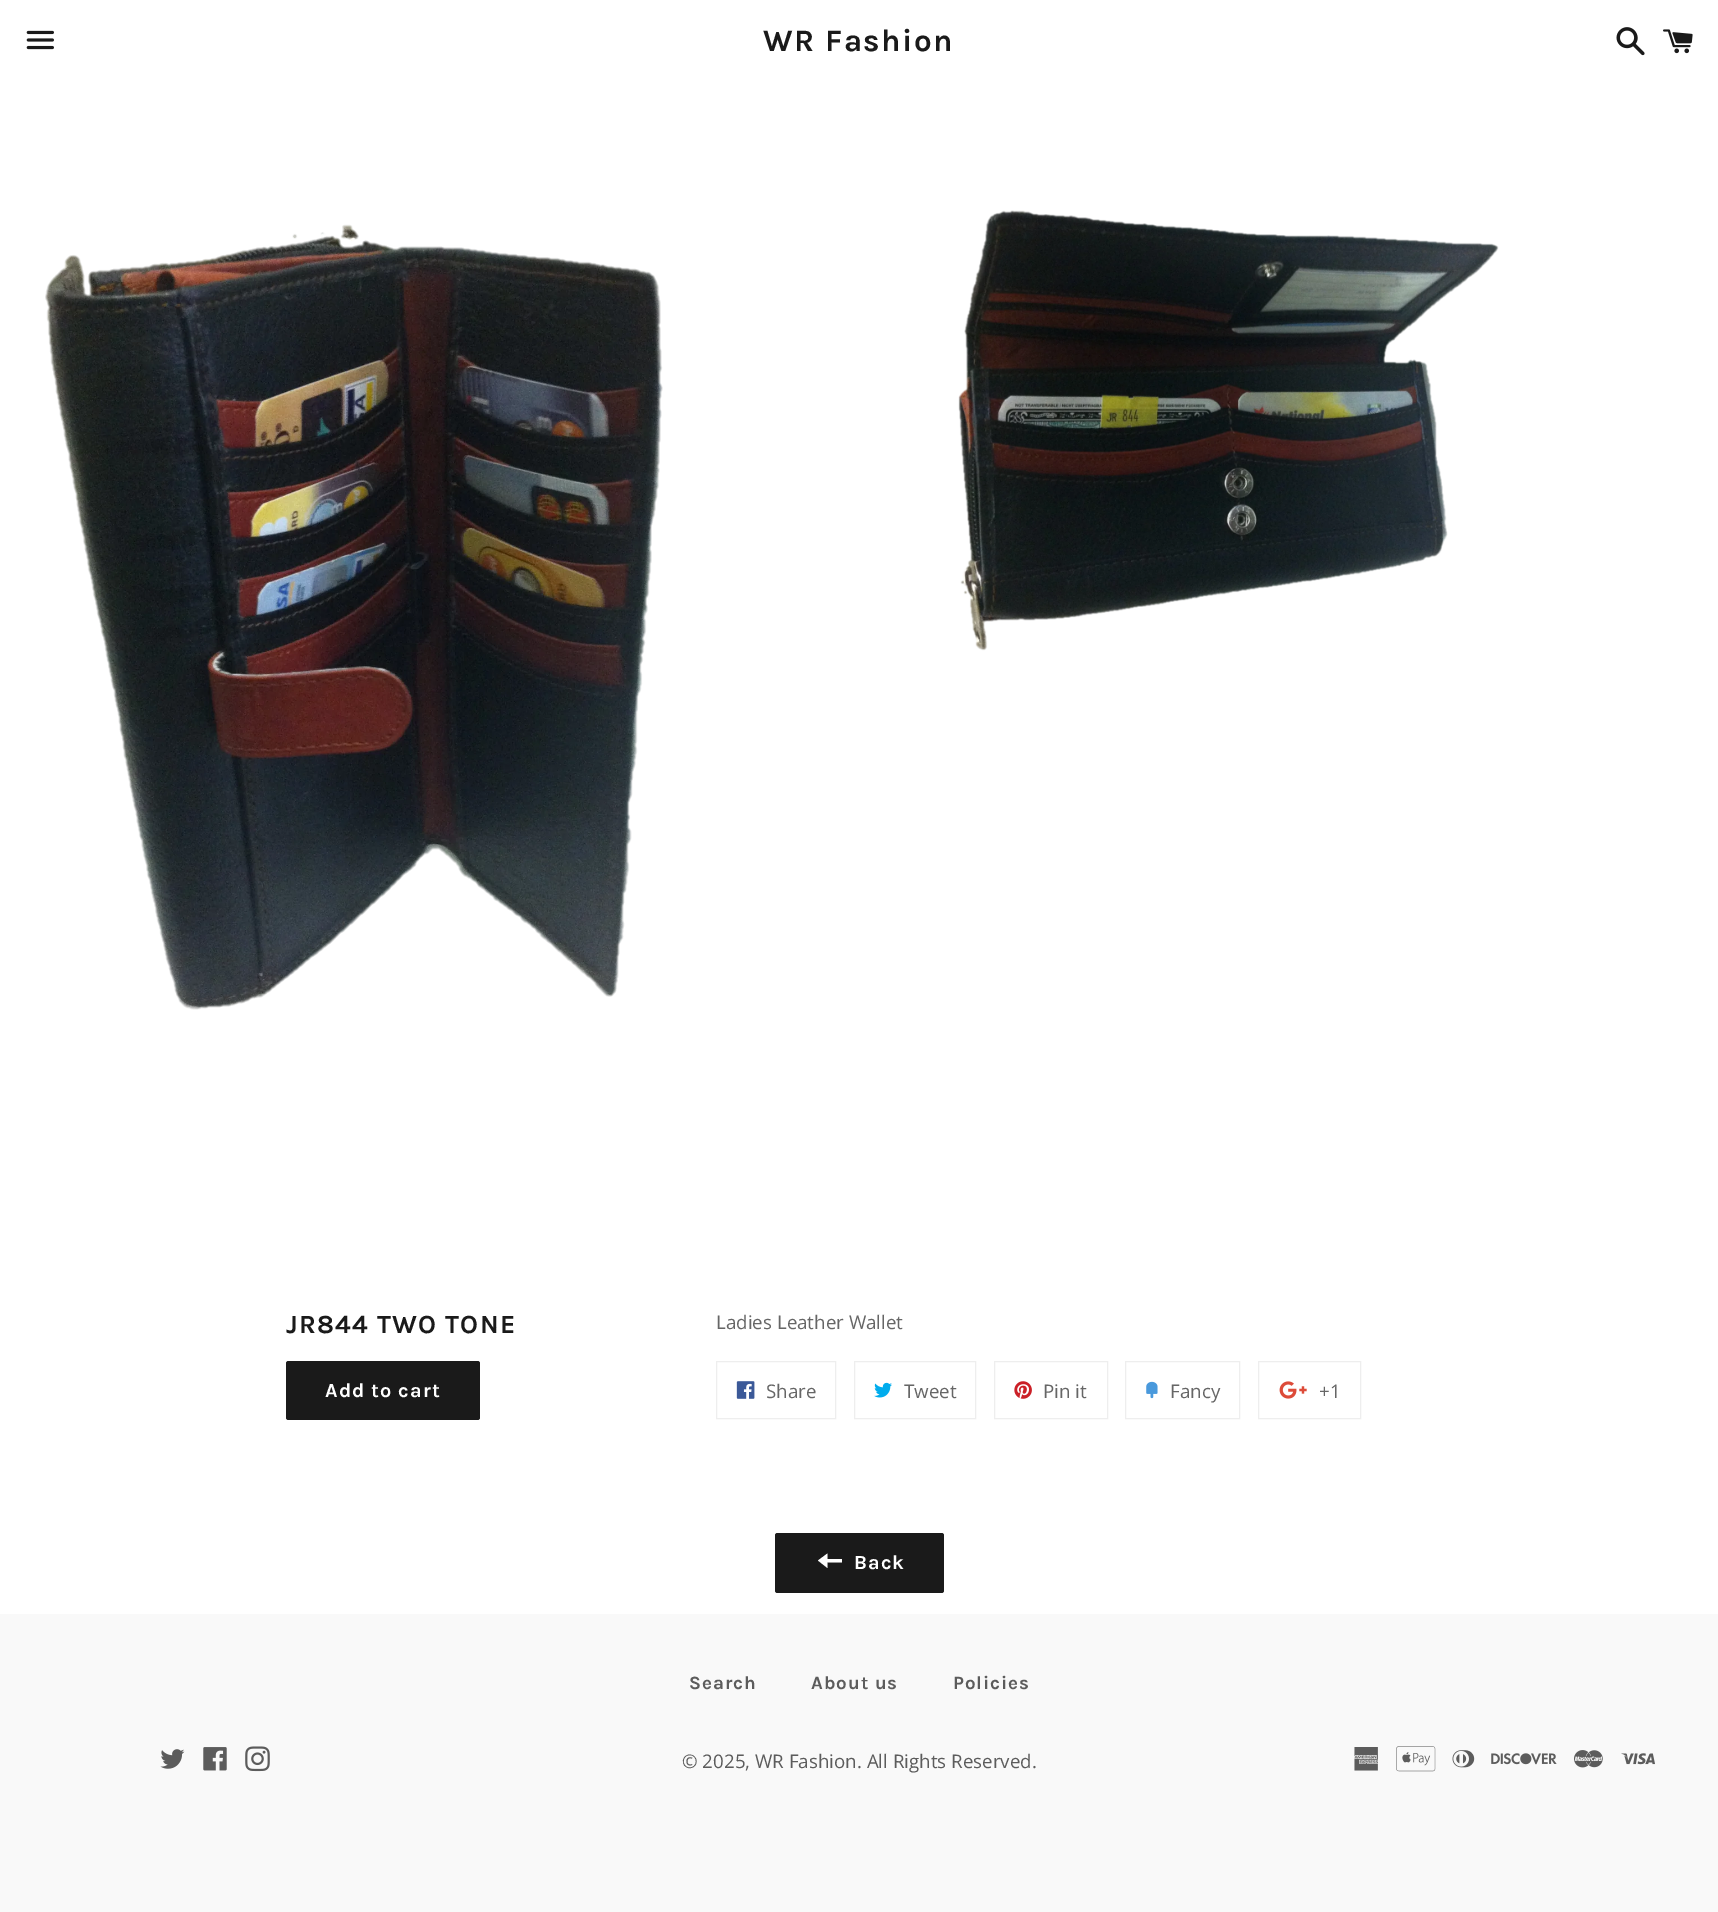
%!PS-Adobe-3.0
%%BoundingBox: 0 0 1718 1912
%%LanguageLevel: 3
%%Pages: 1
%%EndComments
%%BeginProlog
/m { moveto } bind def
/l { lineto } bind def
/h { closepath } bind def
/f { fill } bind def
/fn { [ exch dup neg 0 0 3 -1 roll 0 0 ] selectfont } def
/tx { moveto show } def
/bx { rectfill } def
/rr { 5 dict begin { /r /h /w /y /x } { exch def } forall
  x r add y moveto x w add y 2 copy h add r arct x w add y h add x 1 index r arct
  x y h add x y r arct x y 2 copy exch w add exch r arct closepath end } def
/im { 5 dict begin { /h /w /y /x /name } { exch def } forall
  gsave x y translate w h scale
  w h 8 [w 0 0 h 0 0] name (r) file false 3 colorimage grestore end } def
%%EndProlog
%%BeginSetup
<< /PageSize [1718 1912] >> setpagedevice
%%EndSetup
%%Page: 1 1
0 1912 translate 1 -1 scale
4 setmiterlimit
0.976 setgray
0 0 1718 1912 bx
1 setgray
0 0 1718 1614 bx
(image0.raw) 26 30 28 20 im
/Karla-Bold 31.25 fn
0.102 setgray
763 51 m 1.5 0 (WR Fashion) ashow
(image1.raw) 1616 27 29 29 im
(image2.raw) 1663 29 30 25 im
(image3.raw) 45 224 618 786 im
(image4.raw) 958 210 541 441 im
/Karla-Bold 26.25 fn
286 1333 m 1.25 0 (JR844 TWO TONE) ashow
286 1361 194 59 2.5 rr f
/Karla-Bold 20 fn
1 setgray
325 1397 m 1 0 (Add to cart) ashow
/OpenSans-Regular 18.75 fn
0.4 setgray
(Ladies Leather Wallet) 716 1329 tx
0.933 setgray
716.5 1361.5 119 57 rectstroke
(image5.raw) 736 1381 19 18 im
0.4 setgray
(Share) 766 1398 tx
0.933 setgray
854.5 1361.5 121 57 rectstroke
(image6.raw) 874 1382 18 16 im
0.4 setgray
(Tweet) 904 1398 tx
0.933 setgray
994.5 1361.5 113 57 rectstroke
(image7.raw) 1014 1381 18 18 im
0.4 setgray
(Pin it) 1043 1398 tx
0.933 setgray
1125.5 1361.5 114 57 rectstroke
(image8.raw) 1146 1381 12 18 im
0.4 setgray
(Fancy) 1170 1398 tx
0.933 setgray
1258.5 1361.5 102 57 rectstroke
(image9.raw) 1279 1381 28 18 im
0.4 setgray
(+1) 1319 1398 tx
0.102 setgray
775 1533 169 60 2.5 rr f
1 setgray
827.5 1559 m 827.5 1553.5 l 818 1560.5 l 827.5 1568 l 827.5 1562.5 l 842 1562.5 l 842 1559 l h f
/Karla-Bold 20 fn
854 1569 m 1 0 (Back) ashow
/Karla-Bold 18.75 fn
0.361 setgray
689 1689 m 1 0 (Search) ashow
811 1689 m 1 0 (About us) ashow
953 1689 m 1 0 (Policies) ashow
(image10.raw) 160 1749 25 20 im
(image11.raw) 203 1747 24 24 im
(image12.raw) 245 1746 25 26 im
/OpenSans-Regular 18.75 fn
(© 2025, WR Fashion. All Rights Reserved.) 682 1768 tx
(image13.raw) 1354 1747 24 24 im
(image14.raw) 1396 1746 40 26 im
(image15.raw) 1452 1750 23 18 im
(image16.raw) 1491 1753 66 12 im
(image17.raw) 1574 1750 29 18 im
(image18.raw) 1621 1753 34 12 im
showpage
%%EOF
